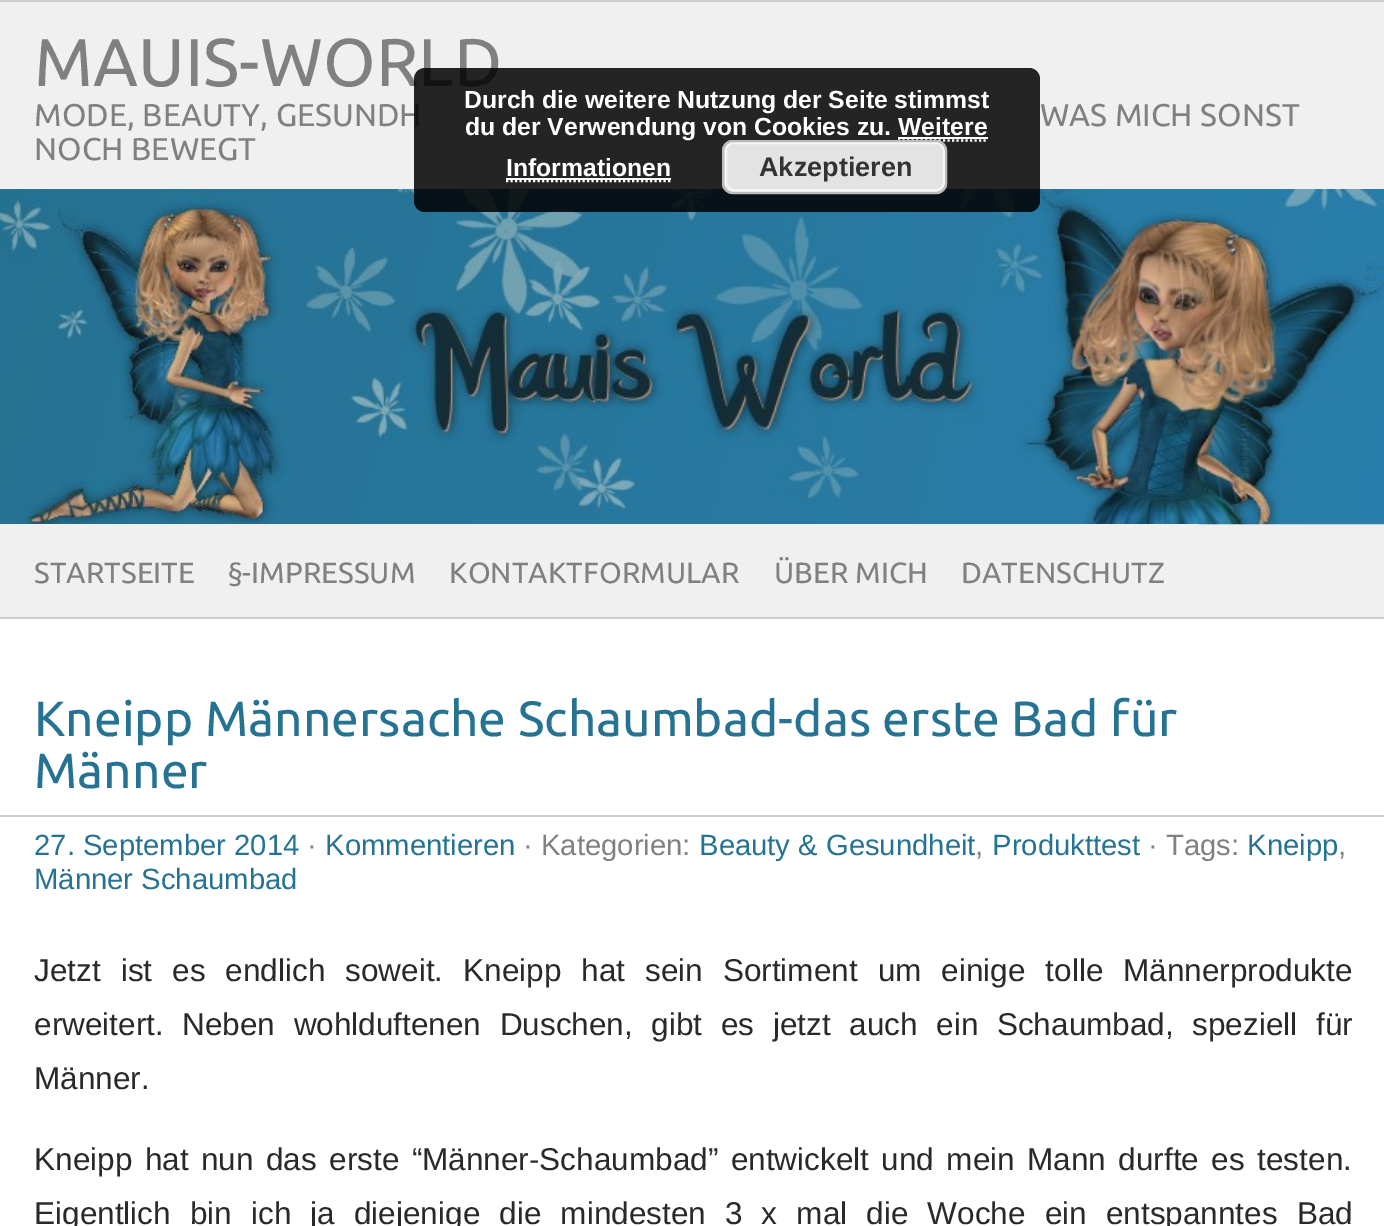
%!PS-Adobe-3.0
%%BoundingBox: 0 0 1384 1226
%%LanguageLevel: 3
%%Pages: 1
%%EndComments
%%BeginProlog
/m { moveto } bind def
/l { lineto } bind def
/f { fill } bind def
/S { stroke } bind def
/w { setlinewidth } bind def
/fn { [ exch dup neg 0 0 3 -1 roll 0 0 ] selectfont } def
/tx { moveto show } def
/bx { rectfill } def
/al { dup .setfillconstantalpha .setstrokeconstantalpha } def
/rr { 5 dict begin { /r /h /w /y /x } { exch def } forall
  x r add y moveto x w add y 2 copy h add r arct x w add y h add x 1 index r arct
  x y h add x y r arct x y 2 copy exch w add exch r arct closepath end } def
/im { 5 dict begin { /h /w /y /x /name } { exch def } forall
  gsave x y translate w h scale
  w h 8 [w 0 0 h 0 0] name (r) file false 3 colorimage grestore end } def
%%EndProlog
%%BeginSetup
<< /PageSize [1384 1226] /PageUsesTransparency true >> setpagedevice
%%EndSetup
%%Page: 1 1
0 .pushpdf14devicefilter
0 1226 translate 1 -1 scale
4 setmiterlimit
1 setgray
0 0 1384 1226 bx
0.941 setgray
0 2 1384 615 bx
0.8 setgray
0 0 1384 2 bx
1199 617 185 2 bx
/Ubuntu-Regular 67.5 fn
0.502 setgray
(MAUIS-WORLD) 34 86 tx
/Ubuntu-Regular 31.5 fn
(MODE, BEAUTY, GESUNDH) 34 126 tx
(WAS MICH SONST) 1040 126 tx
(NOCH BEWEGT) 34 160 tx
(image0.raw) 0 189 1384 336 im
0.941 setgray
0 524 1199 1 bx
0.8 setgray
0 617 1199 2 bx
/Ubuntu-Regular 29.25 fn
0.502 setgray
(STARTSEITE) 34 583 tx
(§-IMPRESSUM) 228 583 tx
(KONTAKTFORMULAR) 449 583 tx
(ÜBER MICH) 774 583 tx
(DATENSCHUTZ) 961 583 tx
/Ubuntu-Regular 49.5 fn
0.145 0.447 0.576 setrgbcolor
(Kneipp Männersache Schaumbad-das erste Bad für) 34 736 tx
(Männer) 34 788 tx
0.8 setgray
0 815 1384 2 bx
/LiberationSans-Regular 29.25 fn
0.145 0.447 0.576 setrgbcolor
(27. September 2014) 34 855 tx
0.502 setgray
(·) 307 855 tx
0.145 0.447 0.576 setrgbcolor
(Kommentieren) 325 855 tx
0.502 setgray
(· Kategorien:) 523 855 tx
0.145 0.447 0.576 setrgbcolor
(Beauty & Gesundheit) 699 855 tx
(Produkttest) 992 855 tx
0.502 setgray
(· Tags:) 1148 855 tx
0.145 0.447 0.576 setrgbcolor
(Kneipp) 1247 855 tx
0.502 setgray
(,) 975 855 tx
(,) 1338 855 tx
0.145 0.447 0.576 setrgbcolor
(Männer Schaumbad) 34 889 tx
/LiberationSans-Regular 31.5 fn
0.161 setgray
34 981 m 11.25 0 32 (Jetzt ist es endlich soweit. Kneipp hat sein Sortiment um einige tolle Männerprodukte) widthshow
34 1035 m 9.9 0 32 (erweitert. Neben wohlduftenen Duschen, gibt es jetzt auch ein Schaumbad, speziell für) widthshow
(Männer.) 34 1089 tx
34 1170 m 3.75 0 32 (Kneipp hat nun das erste “Männer-Schaumbad” entwickelt und mein Mann durfte es testen.) widthshow
34 1224 m 10.4 0 32 (Eigentlich bin ich ja diejenige die mindesten 3 x mal die Woche ein entspanntes Bad) widthshow
0.85 al
0 setgray
414 68 626 144 11 rr f
/LiberationSans-Bold 24.75 fn
1 al
1 setgray
(Durch die weitere Nutzung der Seite stimmst) 464 108 tx
(du der Verwendung von Cookies zu. Weitere) 465 135 tx
(Informationen) 506 176 tx
2.2 w
[2.25 2.25] 0 setdash
898 140.5 m 988 140.5 l S
506 181 m 670.5 181 l S
898 137 90 2 bx
506 178 165 2 bx
0.89 setgray
722 140 225 54 11 rr f
0.965 setgray
2 w
[] 0 setdash
726 143 218 47 8 rr S
0.733 setgray
723 141 223 52 10 rr S
/LiberationSans-Bold 27 fn
0.2 setgray
(Akzeptieren) 759 176 tx
.poppdf14devicefilter showpage
%%EOF
